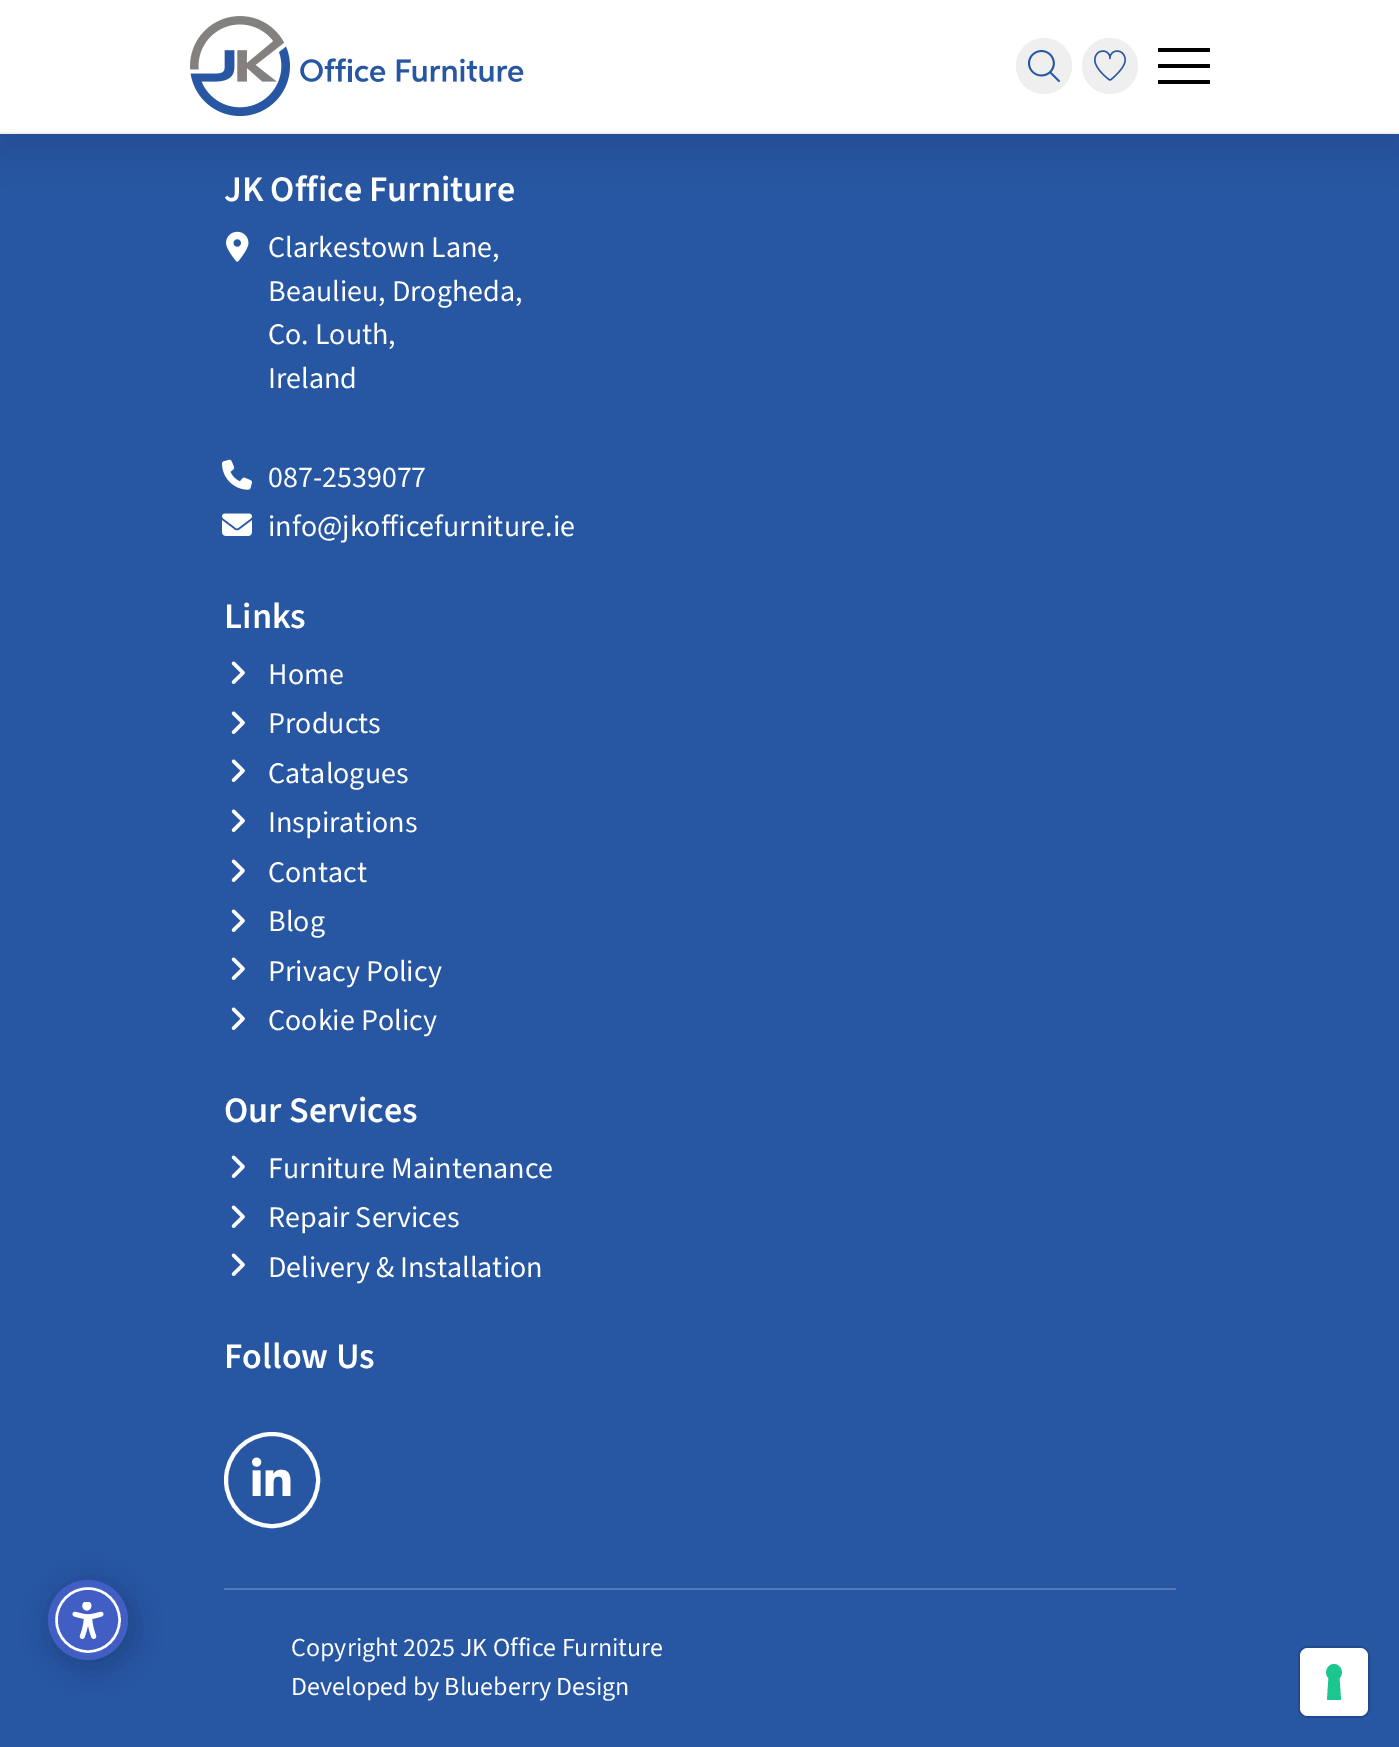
%!PS-Adobe-3.0
%%BoundingBox: 0 0 1399 1747
%%LanguageLevel: 3
%%Pages: 1
%%EndComments
%%BeginProlog
/m { moveto } bind def
/l { lineto } bind def
/c { curveto } bind def
/h { closepath } bind def
/f { fill } bind def
/S { stroke } bind def
/w { setlinewidth } bind def
/fn { [ exch dup neg 0 0 3 -1 roll 0 0 ] selectfont } def
/tx { moveto show } def
/bx { rectfill } def
/al { dup .setfillconstantalpha .setstrokeconstantalpha } def
/ci { newpath 0 360 arc closepath } def
/rr { 5 dict begin { /r /h /w /y /x } { exch def } forall
  x r add y moveto x w add y 2 copy h add r arct x w add y h add x 1 index r arct
  x y h add x y r arct x y 2 copy exch w add exch r arct closepath end } def
/sh { 12 dict begin { /a /b /q /h /w /y /x } { exch def } forall gsave /was 0 def
  9 -2 -9 { dup b mul 4 div /e exch def 1 sub .425 mul 2.718 exch exp 1 add a .99 .min exch div /now exch def
    1 1 now sub 1 was sub div sub al /was now def
    w h .min e 2 mul add 0 gt { x e sub y e sub w e 2 mul add h e 2 mul add
      q e add b .6 mul add w h .min 2 div e add .min 0 .max rr fill } if } for grestore end } def
/im { 5 dict begin { /h /w /y /x /name } { exch def } forall
  gsave x y translate w h scale
  w h 8 [w 0 0 h 0 0] name (r) file false 3 colorimage grestore end } def
%%EndProlog
%%BeginSetup
<< /PageSize [1399 1747] /PageUsesTransparency true >> setpagedevice
%%EndSetup
%%Page: 1 1
0 .pushpdf14devicefilter
0 1747 translate 1 -1 scale
4 setmiterlimit
0.153 0.337 0.639 setrgbcolor
0 0 1399 1747 bx
0 setgray
0 20 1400 134 0 20 0.09 sh
1 setgray
0 0 1399 132 bx
(image0.raw) 190 16 334 100 im
0.937 setgray
1044 66 28 ci f
(image1.raw) 1028 50 32 32 im
1110 66 28 ci f
(image2.raw) 1094 50 32 31 im
0 setgray
1158 80 52 4 bx
1158 64 52 4 bx
1158 48 52 4 bx
0.937 setgray
0 132 1399 2 bx
/SourceSans3-SemiBold 36 fn
1 setgray
(JK Office Furniture) 224 201 tx
(image3.raw) 226 231 23 31 im
/SourceSans3-Regular 30 fn
(Clarkestown Lane,) 268 257 tx
(Beaulieu, Drogheda,) 268 301 tx
(Co. Louth,) 268 344 tx
(Ireland) 268 388 tx
(image4.raw) 222 459 30 31 im
(087-2539077) 268 487 tx
(image5.raw) 222 513 30 23 im
(info@jkofficefurniture.ie) 268 536 tx
/SourceSans3-SemiBold 36 fn
(Links) 224 628 tx
(image6.raw) 231 661 14 23 im
/SourceSans3-Regular 30 fn
(Home) 268 684 tx
(image6.raw) 231 711 14 23 im
(Products) 268 733 tx
(image6.raw) 231 759 14 23 im
(Catalogues) 268 783 tx
(image6.raw) 231 809 14 23 im
(Inspirations) 268 832 tx
(image6.raw) 231 859 14 23 im
(Contact) 268 882 tx
(image6.raw) 231 909 14 23 im
(Blog) 268 931 tx
(image6.raw) 231 957 14 23 im
(Privacy Policy) 268 981 tx
(image6.raw) 231 1007 14 23 im
(Cookie Policy) 268 1030 tx
/SourceSans3-SemiBold 36 fn
(Our Services) 224 1122 tx
(image6.raw) 231 1155 14 23 im
/SourceSans3-Regular 30 fn
(Furniture Maintenance) 268 1178 tx
(image6.raw) 231 1205 14 23 im
(Repair Services) 268 1227 tx
(image6.raw) 231 1253 14 23 im
(Delivery & Installation) 268 1277 tx
/SourceSans3-SemiBold 36 fn
(Follow Us) 224 1368 tx
4 w
272 1480 46 ci S
(image7.raw) 252 1457 39 39 im
0.322 0.471 0.71 setrgbcolor
224 1588 952 2 bx
0 setgray
52 1586 80 80 40 15 0.2 sh
0.251 0.369 0.765 setrgbcolor
88 1620 40 ci f
1 setgray
2.4 w
56.5 1620 m 56.5 1602.5 70.5 1588.5 88 1588.5 c 105.5 1588.5 119.5 1602.5 119.5 1620 c 119.5 1637.5 105.5 1651.5 88 1651.5 c 70.5 1651.5 56.5 1637.5 56.5 1620 c S
(image8.raw) 72 1602 32 37 im
/SourceSans3-Regular 26 fn
(Copyright 2025 JK Office Furniture) 291 1656 tx
(Developed by Blueberry Design) 291 1695 tx
0.129 0.286 0.545 setrgbcolor
2 w
1299 1647 70 70 9 rr S
1 setgray
1300 1648 68 68 8 rr f
0.11 0.776 0.569 setrgbcolor
1334 1664 m 1341 1664 1344.5 1673.5 1339.5 1678 c 1341 1700 l 1327 1700 l 1328.5 1678 l 1323.5 1673.5 1327 1664 1334 1664 c h eofill
.poppdf14devicefilter showpage
%%EOF
